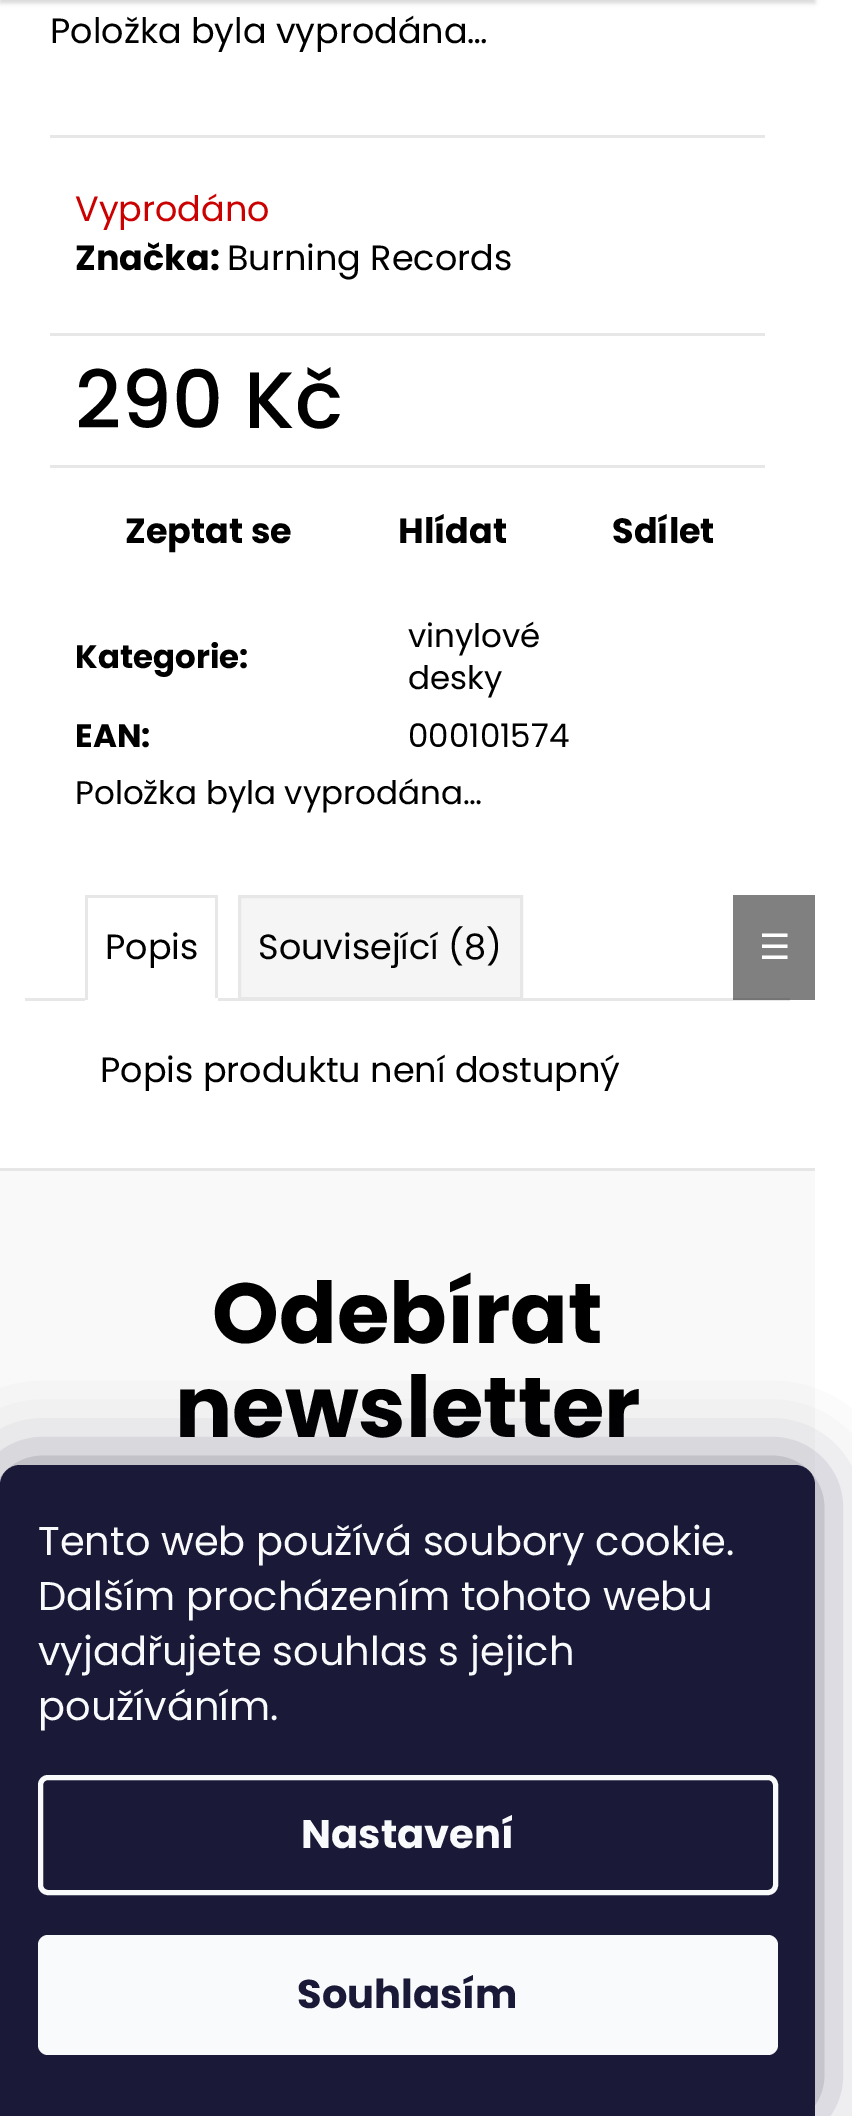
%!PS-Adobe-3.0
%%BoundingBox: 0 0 852 2116
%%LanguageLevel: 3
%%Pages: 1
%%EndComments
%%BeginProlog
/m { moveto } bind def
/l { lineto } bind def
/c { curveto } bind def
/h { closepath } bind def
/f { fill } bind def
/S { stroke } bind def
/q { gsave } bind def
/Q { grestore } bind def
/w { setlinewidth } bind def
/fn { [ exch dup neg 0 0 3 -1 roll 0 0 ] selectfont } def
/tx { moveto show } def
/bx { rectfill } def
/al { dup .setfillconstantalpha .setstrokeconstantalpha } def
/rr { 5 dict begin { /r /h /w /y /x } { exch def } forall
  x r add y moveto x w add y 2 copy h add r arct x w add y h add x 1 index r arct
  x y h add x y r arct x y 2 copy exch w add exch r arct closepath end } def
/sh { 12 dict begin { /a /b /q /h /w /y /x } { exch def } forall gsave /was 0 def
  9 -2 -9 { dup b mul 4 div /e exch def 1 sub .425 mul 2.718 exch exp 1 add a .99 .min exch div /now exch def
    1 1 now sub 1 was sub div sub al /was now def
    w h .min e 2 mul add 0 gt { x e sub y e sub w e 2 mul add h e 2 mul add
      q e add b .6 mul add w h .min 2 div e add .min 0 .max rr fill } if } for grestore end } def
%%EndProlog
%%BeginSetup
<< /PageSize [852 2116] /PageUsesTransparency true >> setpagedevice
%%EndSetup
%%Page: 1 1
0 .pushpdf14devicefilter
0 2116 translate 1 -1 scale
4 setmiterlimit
1 setgray
0 0 852 2116 bx
0.502 setgray
733 895 82 105 bx
0 setgray
0 -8 815 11 0 2.5 0.16 sh
/Poppins-Regular 35 fn
(Položka byla vyprodána…) 50 43 tx
0.906 setgray
50 135 715 3 bx
50 333 715 3 bx
0.796 0 0 setrgbcolor
(Vyprodáno) 75 221 tx
/Poppins-Bold 35 fn
0 setgray
(Značka:) 75 270 tx
/Poppins-Regular 35 fn
(Burning Records) 227 270 tx
0.906 setgray
50 465 715 3 bx
/Poppins-Medium 80 fn
0 setgray
(290 Kč) 75 428 tx
/Poppins-Bold 35 fn
(Zeptat se) 125 543 tx
(Hlídat) 398 543 tx
(Sdílet) 612 543 tx
/Poppins-Bold 32.5 fn
(Kategorie:) 75 668 tx
/Poppins-Regular 32.5 fn
(vinylové) 408 647 tx
(desky) 408 689 tx
/Poppins-Bold 32.5 fn
(EAN:) 75 747 tx
/Poppins-Regular 32.5 fn
(000101574) 408 747 tx
(Položka byla vyprodána…) 75 804 tx
0.906 setgray
25 998 765 3 bx
0.455 setgray
733 998 57 2 bx
0.906 setgray
85 895 133 3 bx
215 895 3 105 bx
1 setgray
85 998 133 3 bx
0.906 setgray
85 895 3 105 bx
/Poppins-Regular 35 fn
0 setgray
(Popis) 105 959 tx
0.961 setgray
239.5 896.5 m 521.5 896.5 l 521.5 998.5 l 239.5 998.5 l h q f Q
0.906 setgray
3 w
S
0 setgray
(Související \(8\)) 258 959 tx
/DejaVuSans-Regular 35 fn
1 setgray
(☰) 759 959 tx
/Poppins-Regular 35 fn
0 setgray
(Popis produktu není dostupný) 100 1082 tx
0.976 setgray
0 1171 815 314 bx
0.902 setgray
0 1168 815 3 bx
/Poppins-Bold 85 fn
0 setgray
(Odebírat) 212 1343 tx
(newsletter) 175 1437 tx
0.106 0.098 0.224 setrgbcolor
0 1465 815 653 20 37.5 0.5 sh
0.102 0.098 0.216 setrgbcolor
20 1465 m 795 1465 l 806 1465 815 1474 815 1485 c 815 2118 l 0 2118 l 0 1485 l 0 1474 9 1465 20 1465 c h f
/Poppins-Regular 40 fn
0.973 0.98 0.984 setrgbcolor
(Tento web používá soubory cookie.) 38 1555 tx
(Dalším procházením tohoto webu) 38 1610 tx
(vyjadřujete souhlas s jejich) 38 1665 tx
(používáním.) 38 1720 tx
5 w
40.5 1777.5 735 115 7.5 rr S
/Poppins-Bold 40 fn
(Nastavení) 301 1848 tx
38 1935 740 120 10 rr f
0.102 0.098 0.216 setrgbcolor
(Souhlasím) 297 2008 tx
.poppdf14devicefilter showpage
%%EOF
